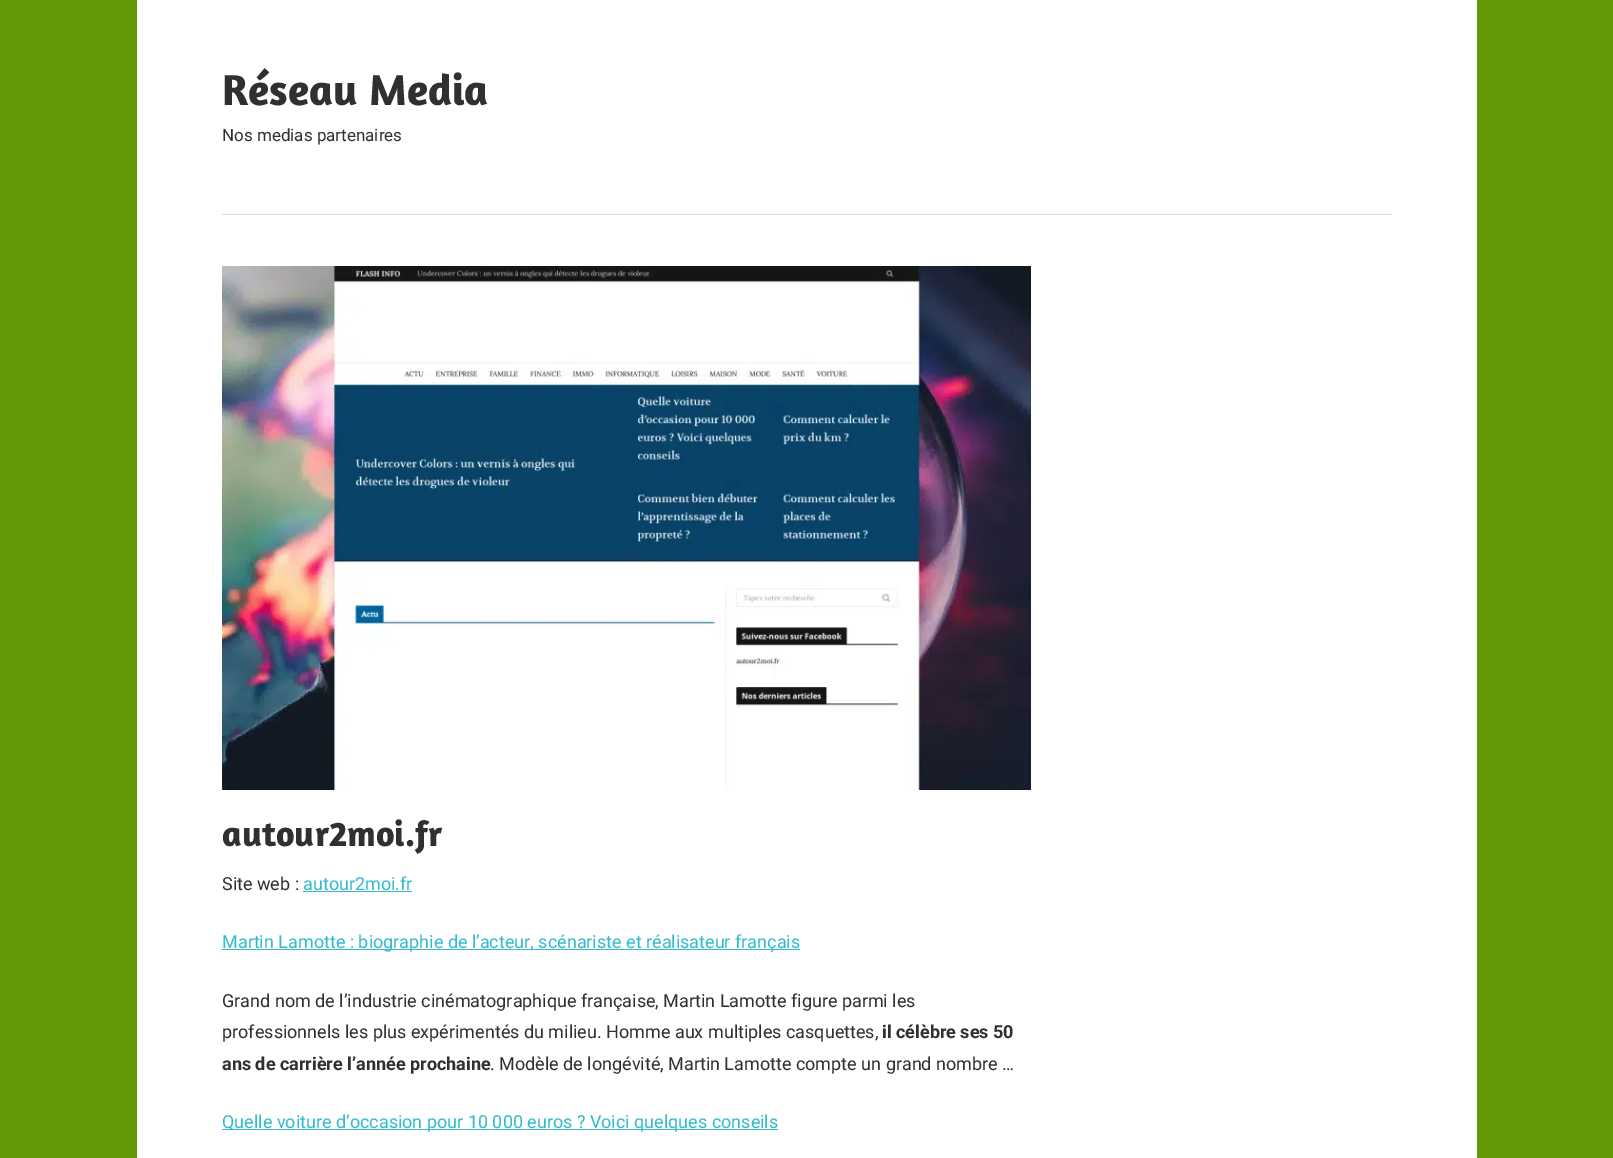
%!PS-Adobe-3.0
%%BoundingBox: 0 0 1613 1158
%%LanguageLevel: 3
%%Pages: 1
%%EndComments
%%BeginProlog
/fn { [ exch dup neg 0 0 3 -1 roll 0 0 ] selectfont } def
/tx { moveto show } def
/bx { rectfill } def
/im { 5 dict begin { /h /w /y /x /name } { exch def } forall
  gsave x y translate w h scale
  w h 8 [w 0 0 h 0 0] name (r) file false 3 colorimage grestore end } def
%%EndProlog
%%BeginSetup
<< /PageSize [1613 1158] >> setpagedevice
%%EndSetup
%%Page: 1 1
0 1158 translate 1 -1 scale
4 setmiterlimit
0.388 0.596 0.024 setrgbcolor
0 0 1613 1158 bx
1 setgray
137 0 1340 1158 bx
/Amaranth-Bold 44 fn
0.188 setgray
(Réseau Media) 222 105 tx
/Roboto-Regular 17 fn
(Nos medias partenaires) 222 141 tx
0.851 setgray
222 214 1170 1 bx
(image0.raw) 222 266 809 524 im
/Amaranth-Bold 36 fn
0.188 setgray
(autour2moi.fr) 222 846 tx
/Roboto-Regular 18 fn
(Site web :) 222 890 tx
0.2 0.733 0.8 setrgbcolor
(autour2moi.fr) 303 890 tx
303 891 109 1 bx
222 949 578 1 bx
(Martin Lamotte : biographie de l’acteur, scénariste et réalisateur français) 222 948 tx
0.188 setgray
(Grand nom de l’industrie cinématographique française, Martin Lamotte figure parmi les) 222 1007 tx
(professionnels les plus expérimentés du milieu. Homme aux multiples casquettes,) 222 1038 tx
/Roboto-Bold 18 fn
(il célèbre ses 50) 882 1038 tx
(ans de carrière l’année prochaine) 222 1070 tx
/Roboto-Regular 18 fn
(. Modèle de longévité, Martin Lamotte compte un grand nombre …) 490 1070 tx
0.2 0.733 0.8 setrgbcolor
222 1129 556 1 bx
(Quelle voiture d’occasion pour 10 000 euros ? Voici quelques conseils) 222 1128 tx
showpage
%%EOF
